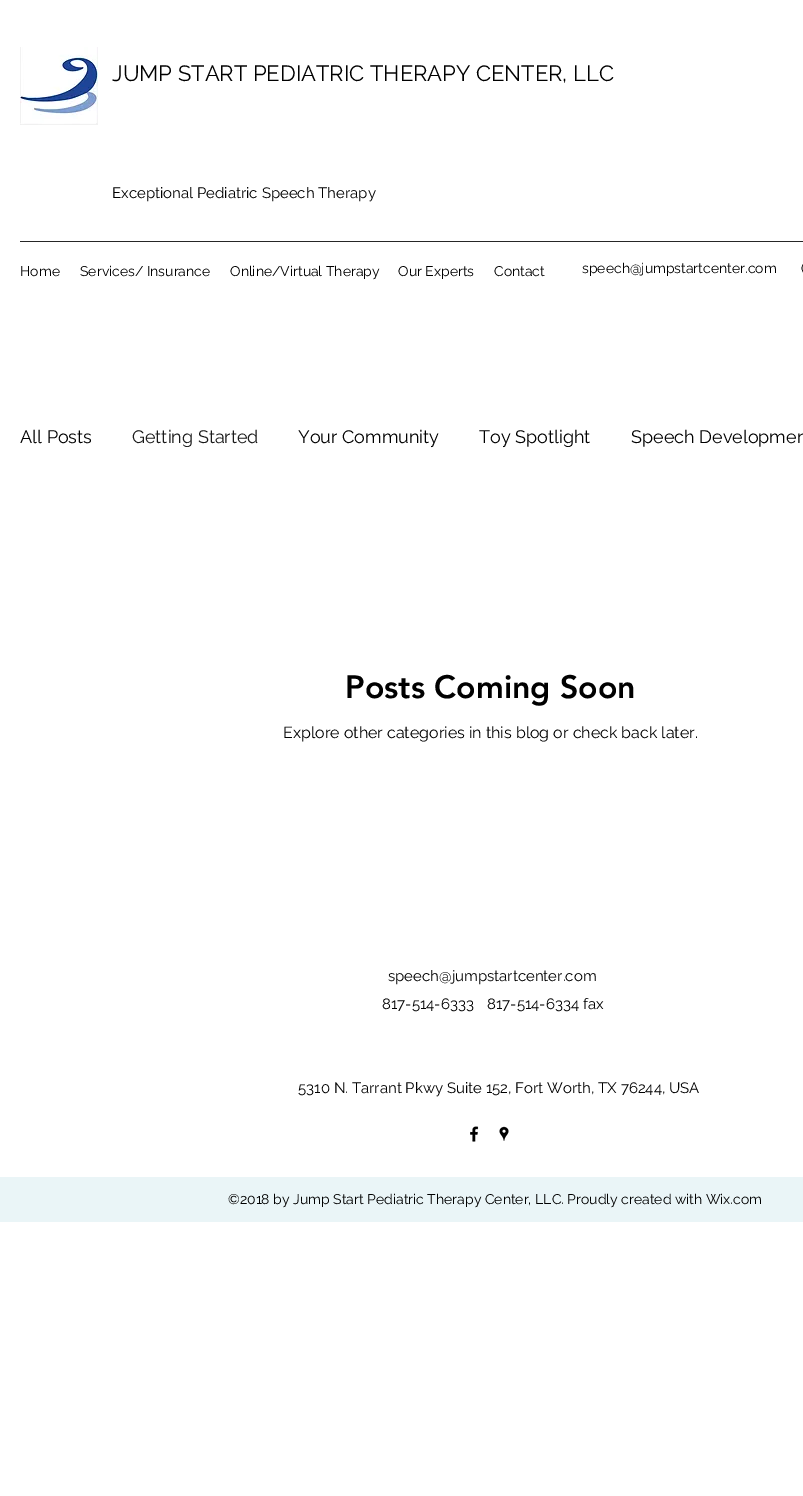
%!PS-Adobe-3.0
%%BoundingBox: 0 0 803 1496
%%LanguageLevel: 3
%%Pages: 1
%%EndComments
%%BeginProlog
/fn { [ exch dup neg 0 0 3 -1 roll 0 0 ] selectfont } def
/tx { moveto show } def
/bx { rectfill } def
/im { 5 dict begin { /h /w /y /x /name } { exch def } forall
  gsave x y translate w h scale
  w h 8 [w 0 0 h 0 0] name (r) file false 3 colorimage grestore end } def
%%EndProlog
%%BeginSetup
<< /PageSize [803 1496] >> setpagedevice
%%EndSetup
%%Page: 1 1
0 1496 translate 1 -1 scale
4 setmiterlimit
1 setgray
0 0 803 1496 bx
(image0.raw) 20 47 78 78 im
/Raleway-Regular 22 fn
0 setgray
(JUMP START PEDIATRIC THERAPY CENTER, LLC) 112 81 tx
/Raleway-Regular 15 fn
(Exceptional Pediatric Speech Therapy) 112 198 tx
0.149 setgray
20 241 783 1 bx
/Raleway-Regular 14 fn
0 setgray
(Home) 20 276 tx
(Services/ Insurance) 80 276 tx
(Online/Virtual Therapy) 230 276 tx
(Our Experts) 398 276 tx
(Contact) 494 276 tx
(speech@jumpstartcenter.com) 582 273 tx
(\() 801 273 tx
/Raleway-Regular 18 fn
(All Posts) 20 443 tx
0.098 setgray
(Getting Started) 132 443 tx
0 setgray
(Your Community) 298 443 tx
(Toy Spotlight) 479 443 tx
(Speech Developmen) 631 443 tx
/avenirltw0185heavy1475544-Black 32 fn
(Posts Coming Soon) 345 698 tx
/Raleway-Regular 16 fn
(Explore other categories in this blog or check back later.) 283 738 tx
/Raleway-Regular 15 fn
(speech@jumpstartcenter.com) 388 981 tx
(817-514-6333) 382 1009 tx
(817-514-6334 fax) 487 1009 tx
(5310 N. Tarrant Pkwy Suite 152, Fort Worth, TX 76244, USA) 298 1093 tx
(image1.raw) 470 1126 9 16 im
(image2.raw) 499 1126 10 15 im
0.918 0.961 0.969 setrgbcolor
0 1177 803 45 bx
/Raleway-Regular 14 fn
0 setgray
(©2018 by Jump Start Pediatric Therapy Center, LLC. Proudly created with Wix.com) 228 1204 tx
showpage
%%EOF
